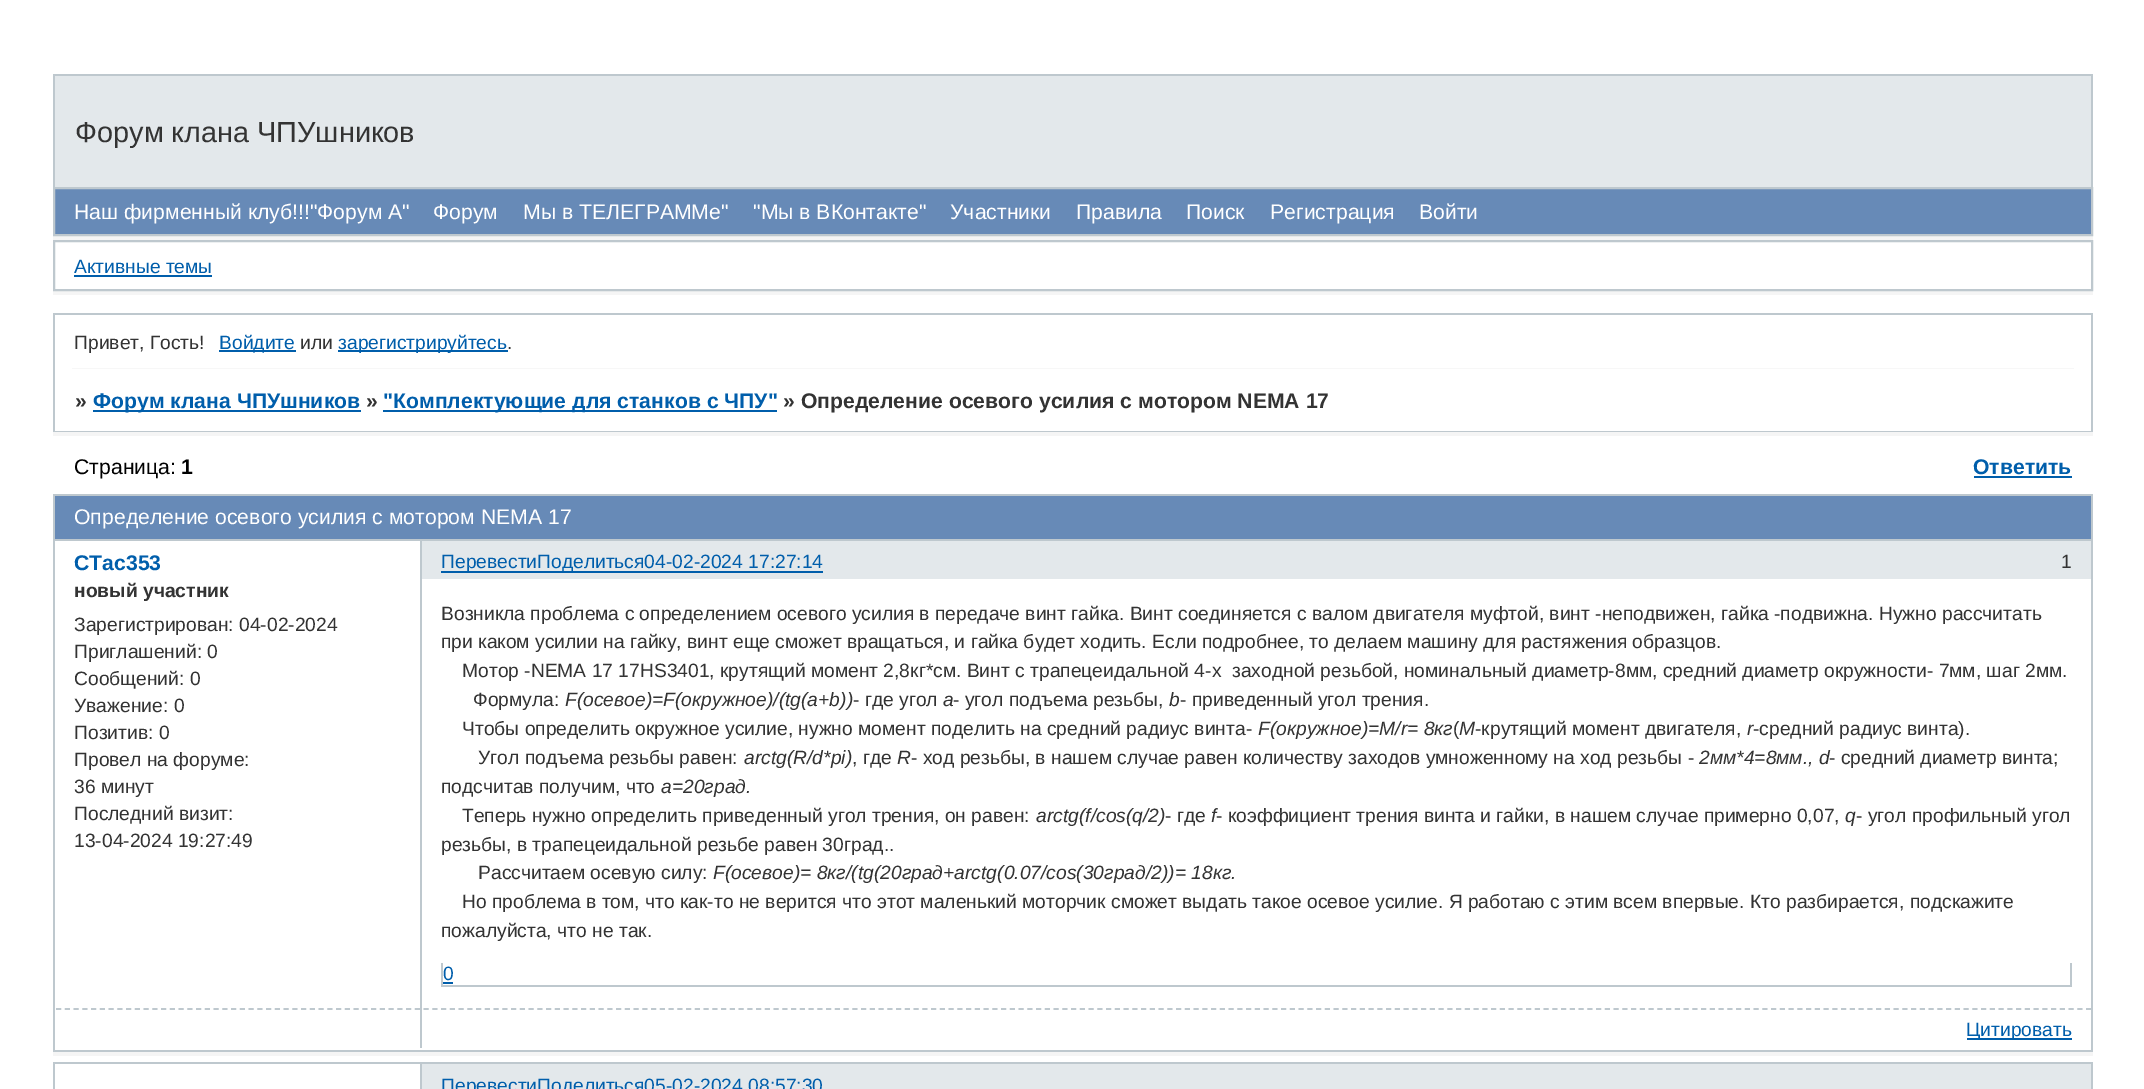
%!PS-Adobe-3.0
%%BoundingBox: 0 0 2144 1089
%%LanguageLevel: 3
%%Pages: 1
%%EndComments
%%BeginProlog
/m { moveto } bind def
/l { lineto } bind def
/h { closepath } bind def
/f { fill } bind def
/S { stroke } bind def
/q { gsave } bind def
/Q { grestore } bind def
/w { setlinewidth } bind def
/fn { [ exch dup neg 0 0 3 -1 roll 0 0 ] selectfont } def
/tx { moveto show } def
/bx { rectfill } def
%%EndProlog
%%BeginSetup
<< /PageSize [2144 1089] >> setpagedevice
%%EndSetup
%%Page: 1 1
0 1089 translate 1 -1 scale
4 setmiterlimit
1 setgray
0 0 2144 1089 bx
0.89 0.91 0.922 setrgbcolor
55 76 2036 111 bx
0.745 0.784 0.808 setrgbcolor
53 74 2040 2 bx
2091 74 2 113 bx
53 74 2 113 bx
/LiberationSans-Regular 28.9 fn
0.2 setgray
(Форум клана ЧПУшников) 75 142 tx
0.961 setgray
53 236 2040 4 bx
0.404 0.541 0.718 setrgbcolor
54 188 m 2092 188 l 2092 235 l 54 235 l h q f Q
0.745 0.784 0.808 setrgbcolor
2 w
S
/LiberationSans-Regular 21.2 fn
1 setgray
(Наш фирменный клуб!!!"Форум А") 74 219 tx
(Форум) 433 219 tx
(Мы в ТЕЛЕГРАММе") 523 219 tx
("Мы в ВКонтакте") 753 219 tx
(Участники) 950 219 tx
(Правила) 1076 219 tx
(Поиск) 1186 219 tx
(Регистрация) 1270 219 tx
(Войти) 1419 219 tx
0.961 setgray
53 291 2040 4 bx
0.745 0.784 0.808 setrgbcolor
54 241 2038 49 rectstroke
/LiberationSans-Regular 19.25 fn
0 0.369 0.671 setrgbcolor
(Активные темы) 74 273 tx
74 275 138 2 bx
0.745 0.784 0.808 setrgbcolor
53 313 2040 2 bx
2091 313 2 119 bx
53 313 2 58 bx
0.2 setgray
(Привет, Гость!) 74 349 tx
0 0.369 0.671 setrgbcolor
219 350 77 2 bx
(Войдите) 219 349 tx
0.2 setgray
(или) 300 349 tx
0 0.369 0.671 setrgbcolor
338 350 170 2 bx
(зарегистрируйтесь) 338 349 tx
0.2 setgray
(.) 507 349 tx
0.969 setgray
72 368 2002 1 bx
0.961 setgray
53 432 2040 4 bx
0.745 0.784 0.808 setrgbcolor
53 431 2040 1 bx
53 368 2 64 bx
/LiberationSans-Bold 21.2 fn
0.2 setgray
(») 75 408 tx
0 0.369 0.671 setrgbcolor
93 410 268 2 bx
(Форум клана ЧПУшников) 93 408 tx
0.2 setgray
(») 366 408 tx
0 0.369 0.671 setrgbcolor
383 410 394 2 bx
("Комплектующие для станков с ЧПУ") 383 408 tx
0.2 setgray
(» Определение осевого усилия с мотором NEMA 17) 783 408 tx
/LiberationSans-Regular 21.2 fn
0 setgray
(Страница:) 74 474 tx
/LiberationSans-Bold 21.2 fn
(1) 181 474 tx
0 0.369 0.671 setrgbcolor
(Ответить) 1973 474 tx
1974 476 98 2 bx
0.404 0.541 0.718 setrgbcolor
55 496 2036 43 bx
0.745 0.784 0.808 setrgbcolor
53 494 2040 2 bx
2091 494 2 45 bx
53 494 2 45 bx
/LiberationSans-Regular 21.2 fn
1 setgray
(Определение осевого усилия с мотором NEMA 17) 74 524 tx
0.961 setgray
53 1052 2040 4 bx
0.745 0.784 0.808 setrgbcolor
53 539 2040 2 bx
2091 539 2 513 bx
53 539 2 42 bx
0.89 0.91 0.922 setrgbcolor
422 541 1669 38 bx
0.745 0.784 0.808 setrgbcolor
420 541 2 40 bx
0 0.369 0.671 setrgbcolor
441 571 382 2 bx
/LiberationSans-Regular 19.25 fn
(ПеревестиПоделиться04-02-2024 17:27:14) 441 568 tx
0.2 setgray
(1) 2061 568 tx
1 setgray
420 579 2 2 bx
0.745 0.784 0.808 setrgbcolor
53 1050 2040 2 bx
53 579 2 473 bx
/LiberationSans-Bold 21.2 fn
0 0.369 0.671 setrgbcolor
(СТас353) 74 570 tx
/LiberationSans-Bold 19.25 fn
0.2 setgray
(новый участник) 74 597 tx
/LiberationSans-Regular 19.25 fn
(Зарегистрирован: 04-02-2024) 74 631 tx
(Приглашений: 0) 74 658 tx
(Сообщений: 0) 74 685 tx
(Уважение: 0) 74 712 tx
(Позитив: 0) 74 739 tx
(Провел на форуме:) 74 766 tx
(36 минут) 74 793 tx
(Последний визит:) 74 820 tx
(13-04-2024 19:27:49) 74 847 tx
0.745 0.784 0.808 setrgbcolor
420 579 2 469 bx
0.2 setgray
(Возникла проблема с определением осевого усилия в передаче винт гайка. Винт соединяется с валом двигателя муфтой, винт -неподвижен, гайка -подвижна. Нужно рассчитать) 441 620 tx
(при каком усилии на гайку, винт еще сможет вращаться, и гайка будет ходить. Если подробнее, то делаем машину для растяжения образцов.) 441 648 tx
(Мотор -NEMA 17 17HS3401, крутящий момент 2,8кг*см. Винт с трапецеидальной 4-х  заходной резьбой, номинальный диаметр-8мм, средний диаметр окружности- 7мм, шаг 2мм.) 462 677 tx
(Формула:) 473 706 tx
/LiberationSans-Italic 19.25 fn
(F\(осевое\)=F\(окружное\)/\(tg\(a+b\)\)) 565 706 tx
/LiberationSans-Regular 19.25 fn
(- где угол) 853 706 tx
/LiberationSans-Italic 19.25 fn
(a) 943 706 tx
/LiberationSans-Regular 19.25 fn
(- угол подъема резьбы,) 953 706 tx
/LiberationSans-Italic 19.25 fn
(b) 1169 706 tx
/LiberationSans-Regular 19.25 fn
(- приведенный угол трения.) 1180 706 tx
(Чтобы определить окружное усилие, нужно момент поделить на средний радиус винта-) 462 735 tx
/LiberationSans-Italic 19.25 fn
(F\(окружное\)=M/r= 8кг) 1258 735 tx
/LiberationSans-Regular 19.25 fn
(\() 1453 735 tx
/LiberationSans-Italic 19.25 fn
(М) 1459 735 tx
/LiberationSans-Regular 19.25 fn
(-крутящий момент двигателя,) 1475 735 tx
/LiberationSans-Italic 19.25 fn
(r) 1747 735 tx
/LiberationSans-Regular 19.25 fn
(-средний радиус винта\).) 1753 735 tx
(Угол подъема резьбы равен:) 478 764 tx
/LiberationSans-Italic 19.25 fn
(arctg\(R/d*pi\)) 744 764 tx
/LiberationSans-Regular 19.25 fn
(, где) 852 764 tx
/LiberationSans-Italic 19.25 fn
(R) 897 764 tx
/LiberationSans-Regular 19.25 fn
(- ход резьбы, в нашем случае равен количеству заходов умноженному на ход резьбы -) 911 764 tx
/LiberationSans-Italic 19.25 fn
(2мм*4=8мм., d) 1699 764 tx
/LiberationSans-Regular 19.25 fn
(- средний диаметр винта;) 1829 764 tx
(подсчитав получим, что) 441 793 tx
/LiberationSans-Italic 19.25 fn
(а=20град.) 661 793 tx
/LiberationSans-Regular 19.25 fn
(Теперь нужно определить приведенный угол трения, он равен:) 462 822 tx
/LiberationSans-Italic 19.25 fn
(arctg\(f/cos\(q/2\)) 1036 822 tx
/LiberationSans-Regular 19.25 fn
(- где) 1165 822 tx
/LiberationSans-Italic 19.25 fn
(f) 1211 822 tx
/LiberationSans-Regular 19.25 fn
(- коэффициент трения винта и гайки, в нашем случае примерно 0,07,) 1216 822 tx
/LiberationSans-Italic 19.25 fn
(q) 1845 822 tx
/LiberationSans-Regular 19.25 fn
(- угол профильный угол) 1856 822 tx
(резьбы, в трапецеидальной резьбе равен 30град..) 441 851 tx
(Рассчитаем осевую силу:) 478 879 tx
/LiberationSans-Italic 19.25 fn
(F\(осевое\)= 8кг/\(tg\(20град+arctg\(0.07/cos\(30град/2\)\)= 18кг.) 713 879 tx
/LiberationSans-Regular 19.25 fn
(Но проблема в том, что как-то не верится что этот маленький моторчик сможет выдать такое осевое усилие. Я работаю с этим всем впервые. Кто разбирается, подскажите) 462 908 tx
(пожалуйста, что не так.) 441 937 tx
0.745 0.784 0.808 setrgbcolor
2070 963 2 24 bx
441 985 1631 2 bx
441 963 2 24 bx
0 0.369 0.671 setrgbcolor
(0) 443 980 tx
443 982 10 2 bx
0.745 0.784 0.808 setrgbcolor
1.8 w
[5.25 3.5] 0 setdash
56 1009 m 2091 1009 l S
0 0.369 0.671 setrgbcolor
1967 1038 105 2 bx
(Цитировать) 1966 1036 tx
0.745 0.784 0.808 setrgbcolor
53 1062 2040 2 bx
2091 1062 2 27 bx
53 1062 2 27 bx
0.89 0.91 0.922 setrgbcolor
422 1064 1669 25 bx
0.745 0.784 0.808 setrgbcolor
420 1064 2 25 bx
0 0.369 0.671 setrgbcolor
(ПеревестиПоделиться05-02-2024 08:57:30) 441 1092 tx
showpage
%%EOF
